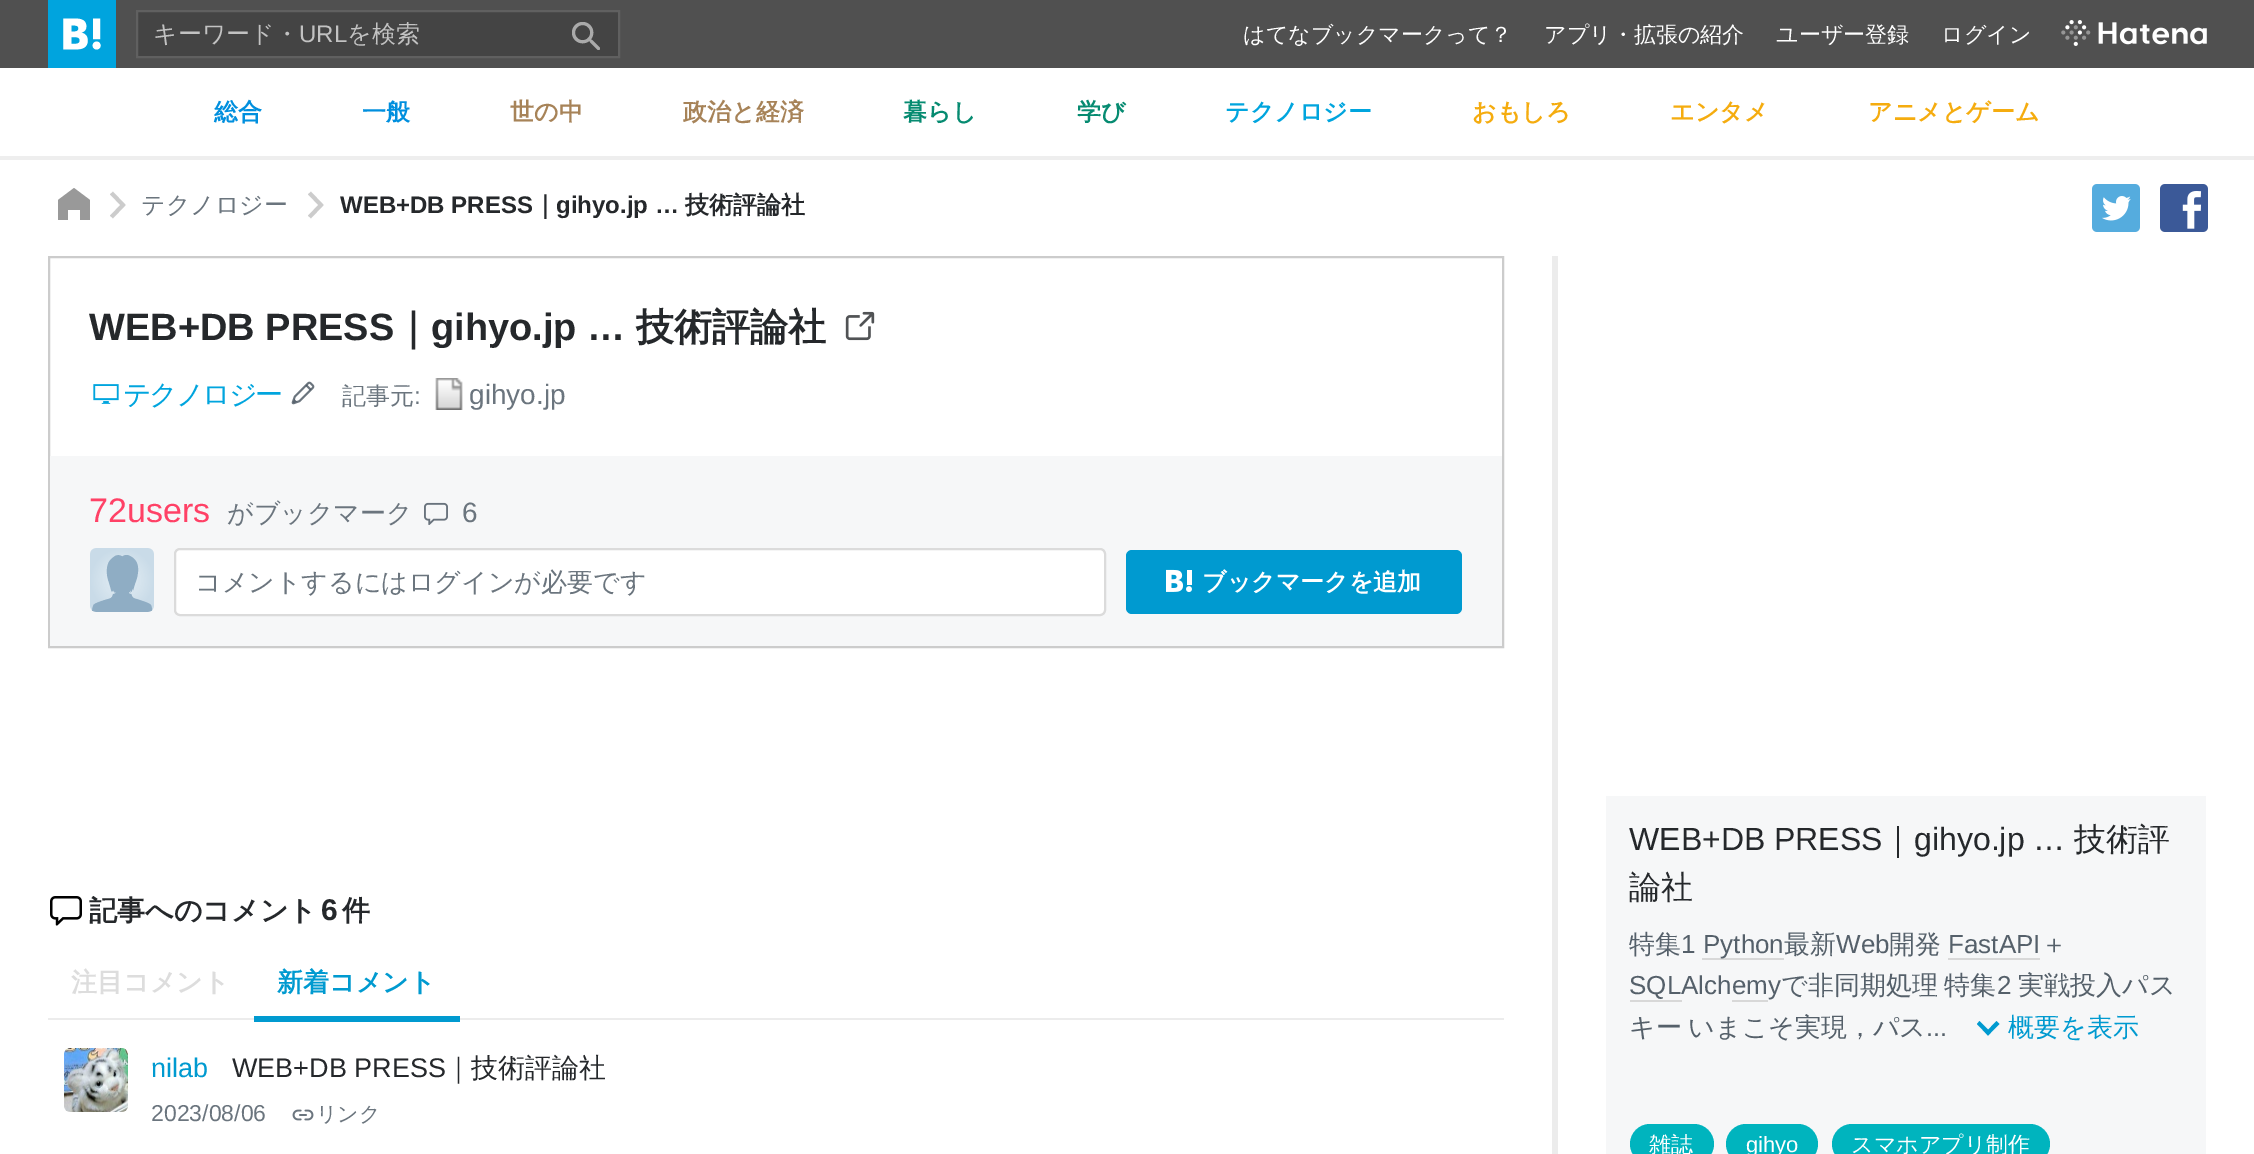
%!PS-Adobe-3.0
%%BoundingBox: 0 0 2254 1154
%%LanguageLevel: 3
%%Pages: 1
%%EndComments
%%BeginProlog
/m { moveto } bind def
/l { lineto } bind def
/h { closepath } bind def
/f { fill } bind def
/S { stroke } bind def
/q { gsave } bind def
/Q { grestore } bind def
/w { setlinewidth } bind def
/fn { [ exch dup neg 0 0 3 -1 roll 0 0 ] selectfont } def
/tx { moveto show } def
/bx { rectfill } def
/rr { 5 dict begin { /r /h /w /y /x } { exch def } forall
  x r add y moveto x w add y 2 copy h add r arct x w add y h add x 1 index r arct
  x y h add x y r arct x y 2 copy exch w add exch r arct closepath end } def
/im { 5 dict begin { /h /w /y /x /name } { exch def } forall
  gsave x y translate w h scale
  w h 8 [w 0 0 h 0 0] name (r) file false 3 colorimage grestore end } def
%%EndProlog
%%BeginSetup
<< /PageSize [2254 1154] >> setpagedevice
%%EndSetup
%%Page: 1 1
0 1154 translate 1 -1 scale
4 setmiterlimit
1 setgray
0 0 2254 1154 bx
0.314 setgray
0 0 2254 68 bx
(image0.raw) 48 0 68 68 im
0.267 setgray
137 11 m 619 11 l 619 57 l 137 57 l h q f Q
0.376 setgray
2 w
S
/WenQuanYiZenHei-Medium 24 fn
0.761 setgray
(キーワード・) 153 42 tx
/LiberationSans-Regular 24 fn
(URL) 299 42 tx
/WenQuanYiZenHei-Medium 24 fn
(を検索) 347 42 tx
(image1.raw) 572 22 28 28 im
/WenQuanYiZenHei-Medium 22 fn
1 setgray
(はてなブックマークって？) 1243 42 tx
(アプリ・拡張の紹介) 1544 42 tx
(ユーザー登録) 1776 42 tx
(ログイン) 1941 42 tx
(image2.raw) 2061 20 146 26 im
0.933 setgray
0 156 2254 4 bx
/WenQuanYiZenHei-Bold 24 fn
0 0.561 0.871 setrgbcolor
(総合) 214 120 tx
(一般) 362 120 tx
0.655 0.514 0.345 setrgbcolor
(世の中) 510 120 tx
(政治と経済) 683 120 tx
0.024 0.545 0.443 setrgbcolor
(暮らし) 903 120 tx
(学び) 1077 120 tx
0 0.647 0.871 setrgbcolor
(テクノロジー) 1225 120 tx
0.961 0.675 0.059 setrgbcolor
(おもしろ) 1472 120 tx
(エンタメ) 1670 120 tx
(アニメとゲーム) 1868 120 tx
0.8 setgray
3.9 w
111.5 193 m 123 205 l 111.5 217 l S
0.6 setgray
74 188 m 58 200 l 58 220 l 68 220 l 68 210 l 80 210 l 80 220 l 90 220 l 90 200 l h f
0.8 setgray
309.5 193 m 321 205 l 309.5 217 l S
/WenQuanYiZenHei-Medium 24 fn
0.42 0.459 0.494 setrgbcolor
(テクノロジー) 141 213 tx
/LiberationSans-Bold 24 fn
0.145 0.157 0.169 setrgbcolor
(WEB+DB PRESS) 340 213 tx
/WenQuanYiZenHei-Bold 24 fn
(｜) 533 213 tx
/LiberationSans-Bold 24 fn
(gihyo.jp …) 556 213 tx
/WenQuanYiZenHei-Bold 24 fn
(技術評論社) 685 213 tx
(image3.raw) 2092 184 48 48 im
(image4.raw) 2160 184 48 48 im
0.925 setgray
1552 256 6 898 bx
0.8 setgray
2 w
49 257 1454 390 rectstroke
/LiberationSans-Bold 38 fn
0.145 0.157 0.169 setrgbcolor
(WEB+DB PRESS) 89 340 tx
/WenQuanYiZenHei-Bold 38 fn
(｜) 394 340 tx
/LiberationSans-Bold 38 fn
(gihyo.jp …) 431 340 tx
/WenQuanYiZenHei-Bold 38 fn
(技術評論社) 636 340 tx
(image5.raw) 845 311 30 30 im
(image6.raw) 93 384 26 20 im
/WenQuanYiZenHei-Medium 28 fn
0 0.647 0.871 setrgbcolor
123 404 m -2.25 0 (テクノロジー) ashow
(image7.raw) 291 381 24 24 im
/WenQuanYiZenHei-Medium 24 fn
0.42 0.459 0.494 setrgbcolor
(記事元) 342 404 tx
/LiberationSans-Regular 24 fn
(:) 414 404 tx
(image8.raw) 435 378 28 32 im
/LiberationSans-Regular 28 fn
(gihyo.jp) 469 404 tx
0.965 0.969 0.973 setrgbcolor
50 456 1452 190 bx
/LiberationSans-Regular 34 fn
1 0.255 0.4 setrgbcolor
(72users) 89 522 tx
/WenQuanYiZenHei-Medium 26 fn
0.42 0.459 0.494 setrgbcolor
(がブックマーク) 227 522 tx
(image9.raw) 424 502 24 23 im
/LiberationSans-Regular 28 fn
(6) 462 522 tx
(image10.raw) 90 548 64 64 im
1 setgray
175 549 930 66 5 rr q f Q
0.859 setgray
S
/WenQuanYiZenHei-Medium 26 fn
0.42 0.459 0.494 setrgbcolor
(コメントするにはログインが必要です) 195 591 tx
0 0.604 0.816 setrgbcolor
1126 550 336 64 6 rr f
(image11.raw) 1166 569 26 24 im
/WenQuanYiZenHei-Bold 24 fn
1 setgray
(ブックマークを追加) 1202 590 tx
(image12.raw) 50 896 32 30 im
/WenQuanYiZenHei-Bold 28 fn
0.145 0.157 0.169 setrgbcolor
(記事へのコメント) 89 920 tx
/LiberationSans-Bold 30 fn
(6) 321 920 tx
/WenQuanYiZenHei-Bold 28 fn
(件) 342 920 tx
0.925 setgray
48 1018 1456 2 bx
/WenQuanYiZenHei-Bold 26 fn
0.867 setgray
(注目コメント) 71 991 tx
0 0.604 0.816 setrgbcolor
254 1016 206 6 bx
(新着コメント) 277 991 tx
(image13.raw) 64 1048 64 64 im
/LiberationSans-Regular 27 fn
(nilab) 151 1077 tx
0.145 0.157 0.169 setrgbcolor
(WEB+DB PRESS) 232 1077 tx
/WenQuanYiZenHei-Medium 27 fn
(｜技術評論社) 445 1077 tx
/LiberationSans-Regular 23 fn
0.42 0.459 0.494 setrgbcolor
(2023/08/06) 151 1121 tx
(image14.raw) 292 1109 22 12 im
/WenQuanYiZenHei-Medium 21 fn
(リンク) 316 1121 tx
0.965 0.969 0.973 setrgbcolor
1606 796 600 358 bx
/LiberationSans-Regular 32 fn
0.145 0.157 0.169 setrgbcolor
(WEB+DB PRESS) 1629 850 tx
/WenQuanYiZenHei-Medium 32 fn
(｜) 1882 850 tx
/LiberationSans-Regular 32 fn
(gihyo.jp …) 1914 850 tx
/WenQuanYiZenHei-Medium 32 fn
(技術評) 2074 850 tx
(論社) 1629 898 tx
/WenQuanYiZenHei-Medium 26 fn
0.333 0.376 0.416 setrgbcolor
(特集) 1629 953 tx
/LiberationSans-Regular 26 fn
(1) 1681 953 tx
0.847 setgray
1702 958 82 2 bx
0.333 0.376 0.416 setrgbcolor
(Python) 1703 953 tx
/WenQuanYiZenHei-Medium 26 fn
(最新) 1784 953 tx
/LiberationSans-Regular 26 fn
(Web) 1836 953 tx
/WenQuanYiZenHei-Medium 26 fn
(開発) 1889 953 tx
/LiberationSans-Regular 26 fn
(FastAPI) 1948 953 tx
0.847 setgray
1948 958 92 2 bx
/WenQuanYiZenHei-Medium 26 fn
0.333 0.376 0.416 setrgbcolor
(＋) 2041 953 tx
/LiberationSans-Regular 26 fn
(SQLAlchemy) 1629 994 tx
0.847 setgray
1630 1000 52 2 bx
/WenQuanYiZenHei-Medium 26 fn
0.333 0.376 0.416 setrgbcolor
1781 994 m -1 0 32 (で非同期処理 特集) widthshow
/LiberationSans-Regular 26 fn
(2) 1997 994 tx
/WenQuanYiZenHei-Medium 26 fn
(実戦投入パス) 2018 994 tx
0.847 setgray
1732 1000 36 2 bx
0.333 0.376 0.416 setrgbcolor
1629 1036 m -1 0 32 (キー いまこそ実現，パス) widthshow
/LiberationSans-Regular 26 fn
(...) 1926 1036 tx
0 0.604 0.816 setrgbcolor
1996.5 1021 m 1999.5 1024 l 1988 1035.5 l 1985.5 1032.5 l h f
1979.5 1021 m 1991 1032.5 l 1988 1035.5 l 1977 1024 l h f
/WenQuanYiZenHei-Medium 26 fn
(概要を表示) 2008 1036 tx
0 0.706 0.745 setrgbcolor
1630 1124 84 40 20 rr f
/WenQuanYiZenHei-Medium 22 fn
1 setgray
(雑誌) 1649 1152 tx
0 0.706 0.745 setrgbcolor
1726 1124 92 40 20 rr f
/LiberationSans-Regular 22 fn
1 setgray
(gihyo) 1746 1152 tx
0 0.706 0.745 setrgbcolor
1832 1124 218 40 20 rr f
/WenQuanYiZenHei-Medium 22 fn
1 setgray
(スマホアプリ制作) 1851 1152 tx
showpage
%%EOF
